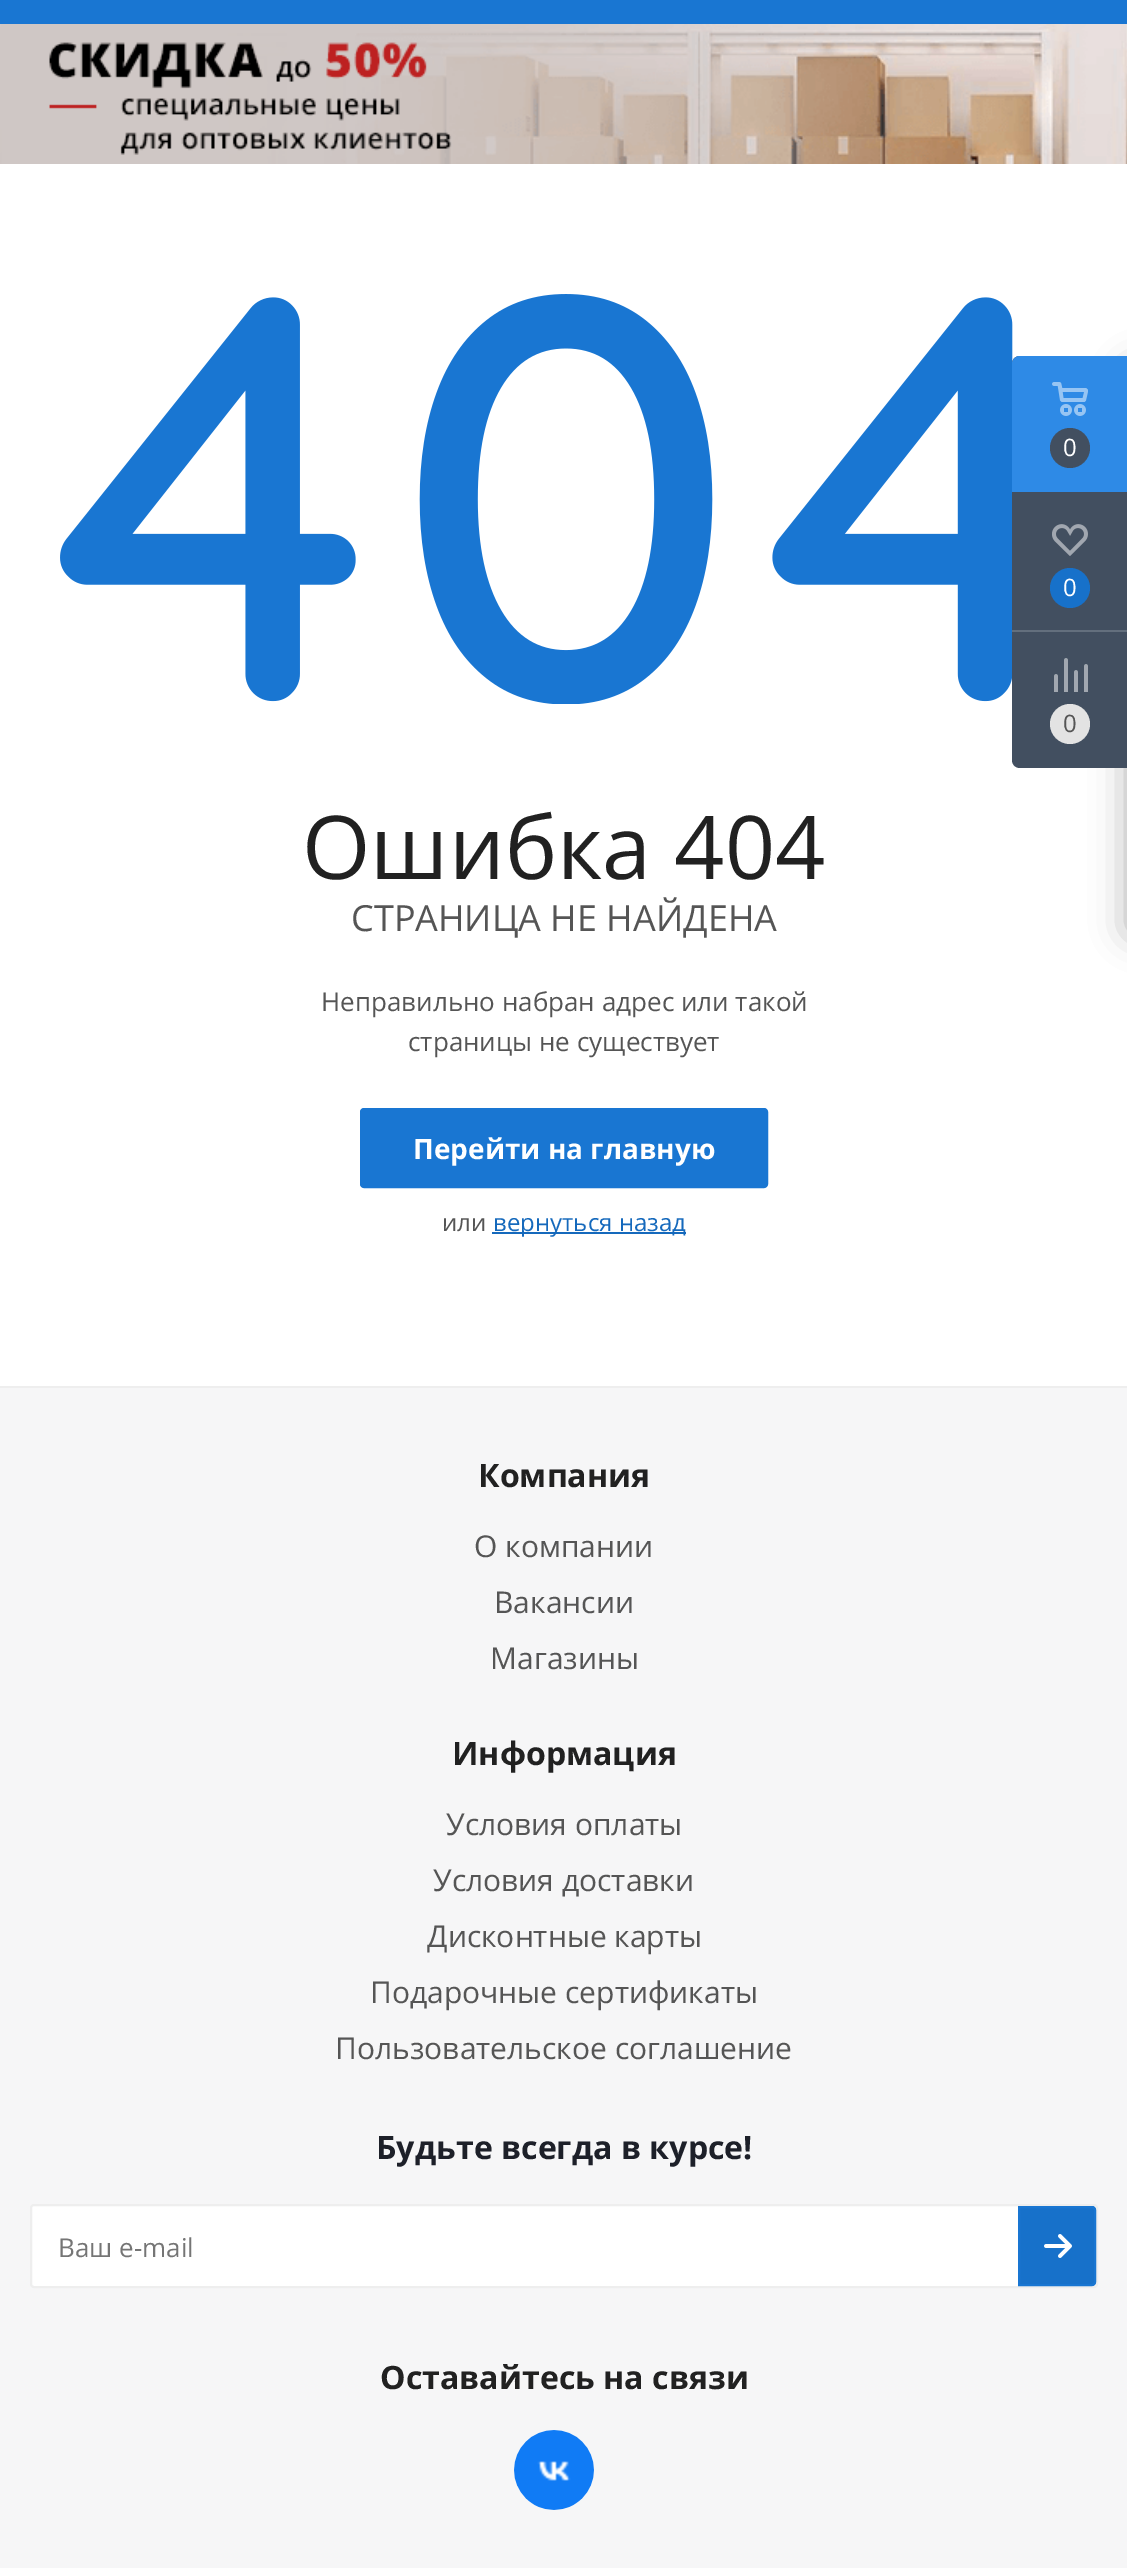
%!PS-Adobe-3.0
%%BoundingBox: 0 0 1127 2568
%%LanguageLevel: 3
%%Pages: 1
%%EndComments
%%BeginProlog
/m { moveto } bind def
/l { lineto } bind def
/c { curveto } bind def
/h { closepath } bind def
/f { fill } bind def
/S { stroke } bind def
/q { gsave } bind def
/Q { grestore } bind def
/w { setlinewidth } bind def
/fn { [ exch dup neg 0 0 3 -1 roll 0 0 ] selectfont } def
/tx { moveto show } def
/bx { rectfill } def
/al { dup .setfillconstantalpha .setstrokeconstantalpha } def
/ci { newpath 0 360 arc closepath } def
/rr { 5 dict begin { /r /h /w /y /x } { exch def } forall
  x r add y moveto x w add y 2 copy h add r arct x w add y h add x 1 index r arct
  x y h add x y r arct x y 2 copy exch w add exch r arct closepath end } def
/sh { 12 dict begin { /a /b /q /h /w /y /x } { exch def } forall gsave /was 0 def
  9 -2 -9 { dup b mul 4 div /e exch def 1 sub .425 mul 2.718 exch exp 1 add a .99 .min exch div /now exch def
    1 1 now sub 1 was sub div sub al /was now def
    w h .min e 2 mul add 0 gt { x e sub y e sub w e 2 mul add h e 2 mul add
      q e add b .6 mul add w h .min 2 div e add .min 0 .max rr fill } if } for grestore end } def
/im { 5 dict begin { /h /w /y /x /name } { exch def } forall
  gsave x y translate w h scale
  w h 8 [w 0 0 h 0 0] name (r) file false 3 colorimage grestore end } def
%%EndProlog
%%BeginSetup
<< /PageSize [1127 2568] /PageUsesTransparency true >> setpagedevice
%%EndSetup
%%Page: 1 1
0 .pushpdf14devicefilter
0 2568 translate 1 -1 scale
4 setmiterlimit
0.965 0.965 0.969 setrgbcolor
0 0 1127 2568 bx
1 setgray
0 164 1127 1222 bx
0.173 setgray
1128 368 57 566 4 18 0.4 sh
(image4.raw) 60 294 953 410 im
0.259 0.31 0.376 setrgbcolor
1020 356 m 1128 356 l 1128 768 l 1020 768 l 1015.5 768 1012 764.5 1012 760 c 1012 364 l 1012 359.5 1015.5 356 1020 356 c h f
0.18 0.541 0.902 setrgbcolor
1020 356 m 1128 356 l 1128 492 l 1012 492 l 1012 364 l 1012 359.5 1015.5 356 1020 356 c h f
(image0.raw) 1052 382 36 34 im
0.259 0.31 0.376 setrgbcolor
1070 448 20 ci f
/OpenSans-Regular 24 fn
1 setgray
(0) 1063 456 tx
(image1.raw) 1052 524 36 32 im
0.09 0.443 0.792 setrgbcolor
1070 588 20 ci f
1 setgray
(0) 1063 596 tx
0.388 0.435 0.49 setrgbcolor
1012 630 115 2 bx
(image2.raw) 1054 658 34 34 im
0.89 setgray
1070 724 20 ci f
0.333 setgray
(0) 1063 732 tx
0.098 0.463 0.824 setrgbcolor
0 0 1127 24 bx
(image3.raw) 0 24 1127 140 im
/OpenSans-Regular 88 fn
0.129 setgray
(Ошибка 404) 302 879 tx
/OpenSans-Regular 36 fn
0.333 setgray
(СТРАНИЦА НЕ НАЙДЕНА) 351 931 tx
/OpenSans-Regular 26 fn
(Неправильно набран адрес или такой) 321 1011 tx
(страницы не существует) 408 1051 tx
0.098 0.463 0.824 setrgbcolor
361 1109 406 78 3 rr q f Q
2 w
S
/OpenSans-Bold 28 fn
1 setgray
(Перейти на главную) 413 1159 tx
/OpenSans-Regular 24 fn
0.333 setgray
(или) 442 1231 tx
0.082 0.412 0.737 setrgbcolor
492 1232 194 2 bx
(вернуться назад) 493 1231 tx
0.933 setgray
0 1386 1127 2 bx
/OpenSans-Bold 32.1 fn
0.129 setgray
(Компания) 478 1487 tx
/OpenSans-Regular 30 fn
0.333 setgray
(О компании) 474 1557 tx
(Вакансии) 494 1613 tx
(Магазины) 490 1669 tx
/OpenSans-Bold 32.1 fn
0.129 setgray
(Информация) 452 1765 tx
/OpenSans-Regular 30 fn
0.333 setgray
(Условия оплаты) 446 1835 tx
(Условия доставки) 433 1891 tx
(Дисконтные карты) 427 1947 tx
(Подарочные сертификаты) 370 2003 tx
(Пользовательское соглашение) 335 2059 tx
/OpenSans-Bold 32.1 fn
0.114 0.125 0.161 setrgbcolor
(Будьте всегда в курсе!) 376 2159 tx
1 setgray
31 2205 1066 82 3 rr q f Q
0.933 setgray
S
/OpenSans-Regular 26 fn
0.459 setgray
(Ваш e-mail) 58 2257 tx
0.09 0.443 0.792 setrgbcolor
1018 2206 m 1092 2206 l 1094 2206 1096 2208 1096 2210 c 1096 2282 l 1096 2284 1094 2286 1092 2286 c 1018 2286 l h f
(image5.raw) 1044 2234 28 24 im
0.098 0.463 0.824 setrgbcolor
1019 2207 m 1092 2207 l 1093.5 2207 1095 2208.5 1095 2210 c 1095 2282 l 1095 2283.5 1093.5 2285 1092 2285 c 1019 2285 l h S
/OpenSans-Bold 32.1 fn
0.129 setgray
(Оставайтесь на связи) 380 2389 tx
(image6.raw) 514 2430 80 80 im
.poppdf14devicefilter showpage
%%EOF
